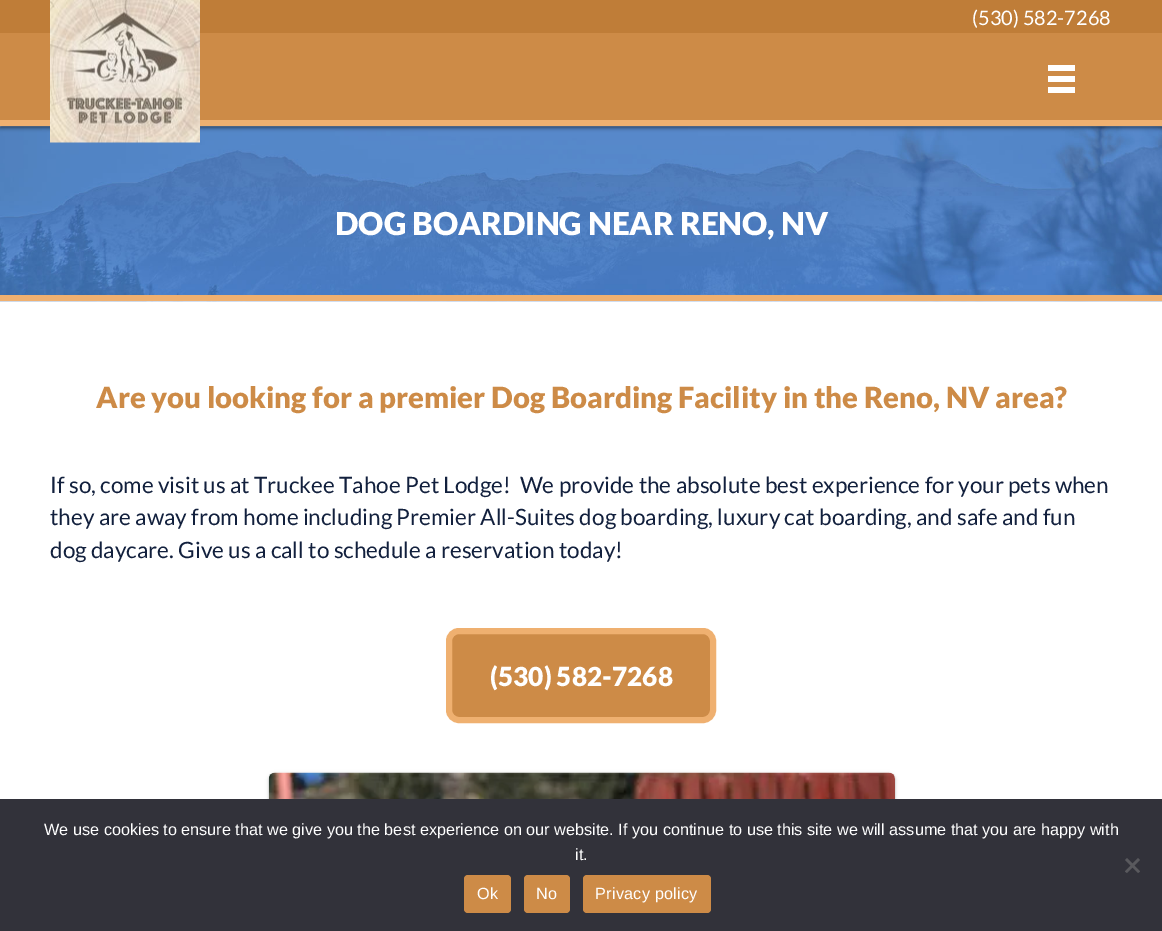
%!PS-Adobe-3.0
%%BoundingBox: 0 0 1162 931
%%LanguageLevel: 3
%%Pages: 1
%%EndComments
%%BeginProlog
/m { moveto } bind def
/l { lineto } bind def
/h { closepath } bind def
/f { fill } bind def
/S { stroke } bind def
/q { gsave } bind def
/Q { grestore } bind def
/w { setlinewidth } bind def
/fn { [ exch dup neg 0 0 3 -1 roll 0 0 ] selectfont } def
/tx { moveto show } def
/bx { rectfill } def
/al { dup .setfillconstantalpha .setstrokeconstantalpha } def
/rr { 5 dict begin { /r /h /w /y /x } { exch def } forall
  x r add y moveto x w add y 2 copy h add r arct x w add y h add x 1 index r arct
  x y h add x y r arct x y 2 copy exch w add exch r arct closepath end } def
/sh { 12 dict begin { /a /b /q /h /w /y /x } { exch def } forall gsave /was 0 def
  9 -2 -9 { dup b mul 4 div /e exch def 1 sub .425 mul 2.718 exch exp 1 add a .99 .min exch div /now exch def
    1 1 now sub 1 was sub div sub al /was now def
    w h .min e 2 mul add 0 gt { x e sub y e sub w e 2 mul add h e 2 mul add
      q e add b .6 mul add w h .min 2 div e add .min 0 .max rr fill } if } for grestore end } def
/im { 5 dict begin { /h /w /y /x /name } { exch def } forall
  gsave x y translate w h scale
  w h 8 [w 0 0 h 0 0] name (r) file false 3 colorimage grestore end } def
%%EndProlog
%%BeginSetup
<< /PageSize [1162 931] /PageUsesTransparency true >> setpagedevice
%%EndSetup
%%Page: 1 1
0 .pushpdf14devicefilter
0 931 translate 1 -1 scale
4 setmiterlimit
1 setgray
0 0 1162 931 bx
(image1.raw) 0 126 1162 176 im
0 setgray
0 1 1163 127 0 2 0.5 sh
0.804 0.545 0.278 setrgbcolor
0 33 1162 87 bx
0.937 0.69 0.439 setrgbcolor
0 120 1162 6 bx
0.749 0.49 0.22 setrgbcolor
0 0 1162 33 bx
(image0.raw) 50 0 150 143 im
1 setgray
1048 65 27 6 bx
1048 76 27 6 bx
1048 87 27 6 bx
/Lato-Regular 20 fn
(\(530\) 582-7268) 972 25 tx
0.937 0.69 0.439 setrgbcolor
0 295 1162 6 bx
/Lato-Black 31.5 fn
1 setgray
(DOG BOARDING NEAR RENO, NV) 335 235 tx
/Lato-Black 29.25 fn
0.804 0.545 0.278 setrgbcolor
(Are you looking for a premier Dog Boarding Facility in the Reno, NV area?) 96 408 tx
/Lato-Regular 22.5 fn
0.071 0.125 0.239 setrgbcolor
(If so, come visit us at Truckee Tahoe Pet Lodge!  We provide the absolute best experience for your pets when) 50 493 tx
(they are away from home including Premier All-Suites dog boarding, luxury cat boarding, and safe and fun) 50 525 tx
(dog daycare. Give us a call to schedule a reservation today!) 50 558 tx
0.804 0.545 0.278 setrgbcolor
449 631 264 89 10 rr q f Q
0.937 0.69 0.439 setrgbcolor
6 w
S
/Lato-Black 26.25 fn
1 setgray
(\(530\) 582-7268) 490 686 tx
0 setgray
269 774 626 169 6 2 0.12 sh
269 774 626 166 6 1 0.24 sh
(image2.raw) 268 772 627 27 im
0.196 0.196 0.227 setrgbcolor
0 799 1162 132 bx
/LiberationSans-Regular 16.25 fn
1 setgray
(We use cookies to ensure that we give you the best experience on our website. If you continue to use this site we will assume that you are happy with) 44 835 tx
(it.) 575 860 tx
0.349 0.349 0.365 setrgbcolor
1138 858 m 1140 860 l 1127 873 l 1125 871.5 l h f
1125 860 m 1127 858 l 1140 871.5 l 1138 873 l h f
0.804 0.545 0.278 setrgbcolor
464 875 47 38 4 rr f
1 setgray
477 899 m 0.25 0 (Ok) ashow
0.804 0.545 0.278 setrgbcolor
524 875 46 38 4 rr f
1 setgray
536 899 m 0.25 0 (No) ashow
0.804 0.545 0.278 setrgbcolor
583 875 128 38 4 rr f
1 setgray
595 899 m 0.25 0 (Privacy policy) ashow
.poppdf14devicefilter showpage
%%EOF
